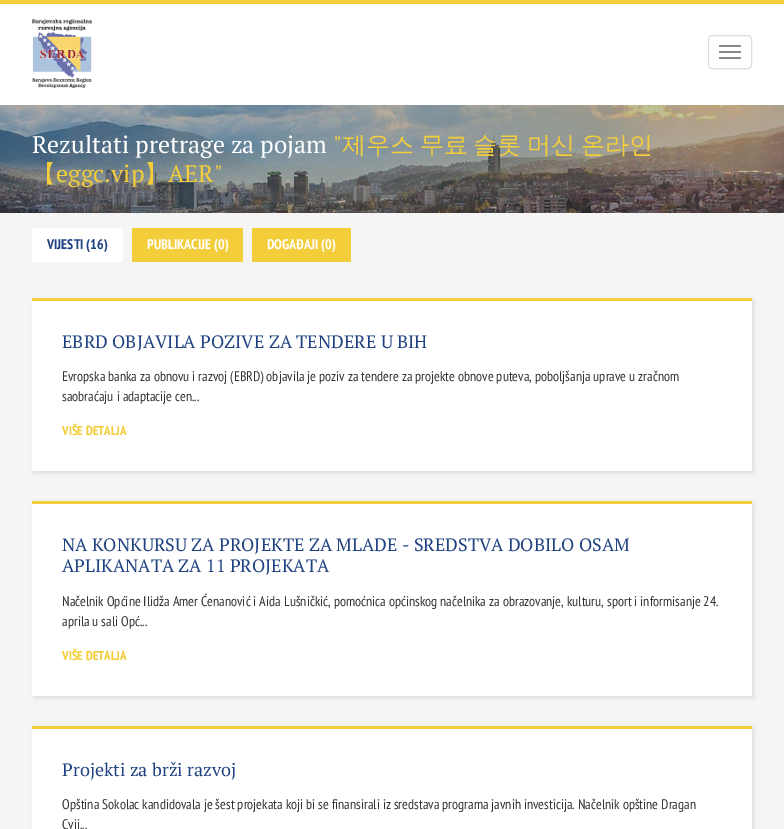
%!PS-Adobe-3.0
%%BoundingBox: 0 0 784 829
%%LanguageLevel: 3
%%Pages: 1
%%EndComments
%%BeginProlog
/m { moveto } bind def
/f { fill } bind def
/S { stroke } bind def
/fn { [ exch dup neg 0 0 3 -1 roll 0 0 ] selectfont } def
/tx { moveto show } def
/bx { rectfill } def
/al { dup .setfillconstantalpha .setstrokeconstantalpha } def
/rr { 5 dict begin { /r /h /w /y /x } { exch def } forall
  x r add y moveto x w add y 2 copy h add r arct x w add y h add x 1 index r arct
  x y h add x y r arct x y 2 copy exch w add exch r arct closepath end } def
/sh { 12 dict begin { /a /b /q /h /w /y /x } { exch def } forall gsave /was 0 def
  9 -2 -9 { dup b mul 4 div /e exch def 1 sub .425 mul 2.718 exch exp 1 add a .99 .min exch div /now exch def
    1 1 now sub 1 was sub div sub al /was now def
    w h .min e 2 mul add 0 gt { x e sub y e sub w e 2 mul add h e 2 mul add
      q e add b .6 mul add w h .min 2 div e add .min 0 .max rr fill } if } for grestore end } def
/im { 5 dict begin { /h /w /y /x /name } { exch def } forall
  gsave x y translate w h scale
  w h 8 [w 0 0 h 0 0] name (r) file false 3 colorimage grestore end } def
%%EndProlog
%%BeginSetup
<< /PageSize [784 829] /PageUsesTransparency true >> setpagedevice
%%EndSetup
%%Page: 1 1
0 .pushpdf14devicefilter
0 829 translate 1 -1 scale
4 setmiterlimit
0.961 setgray
0 0 784 829 bx
1 setgray
0 4 784 101 bx
0.953 0.804 0.227 setrgbcolor
0 0 784 4 bx
(image0.raw) 32 19 60 69 im
0.867 setgray
708.5 35.5 43 33 3.5 rr S
0.533 setgray
719 45 22 2 1 rr f
719 51 22 2 1 rr f
719 57 22 2 1 rr f
(image1.raw) 0 105 784 108 im
/PTSerif-Regular 24 fn
1 setgray
(Rezultati pretrage za pojam) 32 153 tx
0.953 0.804 0.227 setrgbcolor
(") 333 153 tx
/WenQuanYiZenHei-Medium 24 fn
342 153 m -1.5 0 32 (제우스 무료 슬롯 머신 온라인) widthshow
(【) 32 182 tx
/PTSerif-Regular 24 fn
(eggc.vip) 56 182 tx
/WenQuanYiZenHei-Medium 24 fn
(】) 144 182 tx
/PTSerif-Regular 24 fn
(AER") 168 182 tx
1 setgray
32 228 91 34 bx
/PTSansNarrow-Bold 14 fn
0.125 0.259 0.506 setrgbcolor
(VIJESTI \(16\)) 47 249 tx
0.953 0.804 0.227 setrgbcolor
132 228 111 34 bx
1 setgray
(PUBLIKACIJE \(0\)) 147 249 tx
0.953 0.804 0.227 setrgbcolor
252 228 99 34 bx
1 setgray
(DOGAĐAJI \(0\)) 267 249 tx
0 setgray
34 300 720 173 0 2 0.1 sh
1 setgray
32 301 720 170 bx
0.953 0.804 0.227 setrgbcolor
32 298 720 3 bx
/PTSerif-Regular 18 fn
0.125 0.259 0.506 setrgbcolor
(EBRD OBJAVILA POZIVE ZA TENDERE U BIH) 62 348 tx
/PTSansNarrow-Regular 14 fn
0.2 setgray
(Evropska banka za obnovu i razvoj \(EBRD\) objavila je poziv za tendere za projekte obnove puteva, poboljšanja uprave u zračnom) 62 381 tx
(saobraćaju i adaptacije cen...) 62 401 tx
/PTSansNarrow-Bold 13 fn
0.953 0.804 0.227 setrgbcolor
(VIŠE DETALJA) 62 435 tx
0 setgray
34 503 720 195 0 2 0.1 sh
1 setgray
32 504 720 192 bx
0.953 0.804 0.227 setrgbcolor
32 501 720 3 bx
/PTSerif-Regular 18 fn
0.125 0.259 0.506 setrgbcolor
(NA KONKURSU ZA PROJEKTE ZA MLADE - SREDSTVA DOBILO OSAM) 62 551 tx
(APLIKANATA ZA 11 PROJEKATA) 62 572 tx
/PTSansNarrow-Regular 14 fn
0.2 setgray
(Načelnik Općine Ilidža Amer Ćenanović i Aida Lušničkić, pomoćnica općinskog načelnika za obrazovanje, kulturu, sport i informisanje 24.) 62 606 tx
(aprila u sali Opć...) 62 626 tx
/PTSansNarrow-Bold 13 fn
0.953 0.804 0.227 setrgbcolor
(VIŠE DETALJA) 62 660 tx
0 setgray
34 728 720 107 0 2 0.1 sh
1 setgray
32 729 720 100 bx
0.953 0.804 0.227 setrgbcolor
32 726 720 3 bx
/PTSerif-Regular 18 fn
0.125 0.259 0.506 setrgbcolor
(Projekti za brži razvoj) 62 776 tx
/PTSansNarrow-Regular 14 fn
0.2 setgray
(Opština Sokolac kandidovala je šest projekata koji bi se finansirali iz sredstava programa javnih investicija. Načelnik opštine Dragan) 62 809 tx
(Cvij...) 62 829 tx
.poppdf14devicefilter showpage
%%EOF
